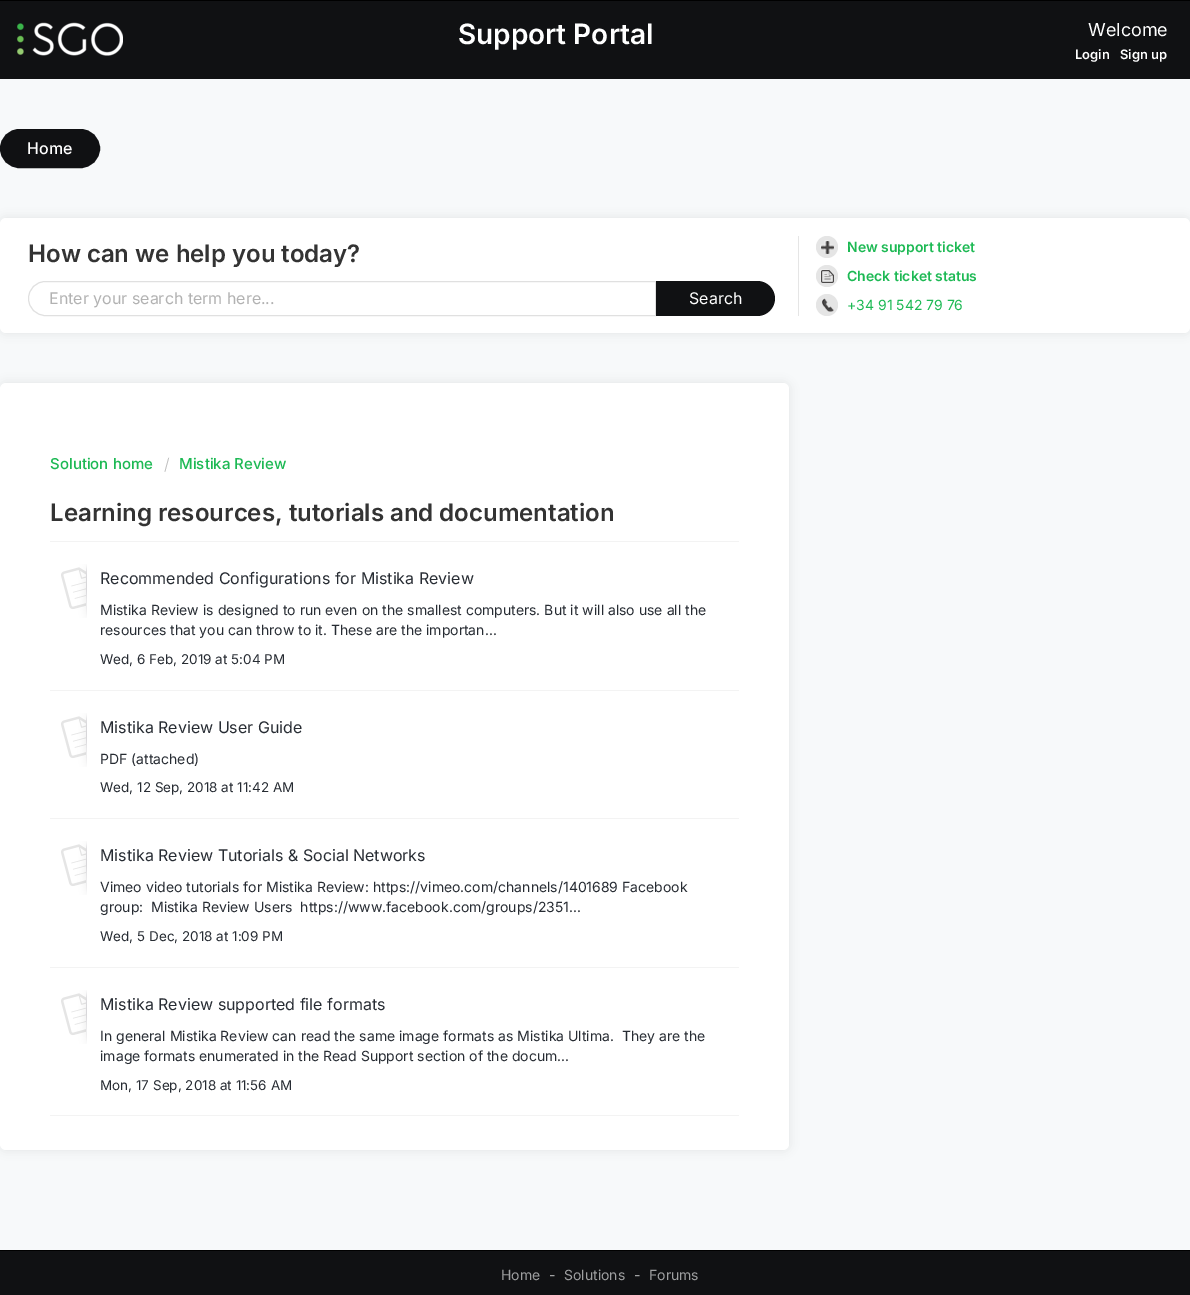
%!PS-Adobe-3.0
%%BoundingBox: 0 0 1190 1295
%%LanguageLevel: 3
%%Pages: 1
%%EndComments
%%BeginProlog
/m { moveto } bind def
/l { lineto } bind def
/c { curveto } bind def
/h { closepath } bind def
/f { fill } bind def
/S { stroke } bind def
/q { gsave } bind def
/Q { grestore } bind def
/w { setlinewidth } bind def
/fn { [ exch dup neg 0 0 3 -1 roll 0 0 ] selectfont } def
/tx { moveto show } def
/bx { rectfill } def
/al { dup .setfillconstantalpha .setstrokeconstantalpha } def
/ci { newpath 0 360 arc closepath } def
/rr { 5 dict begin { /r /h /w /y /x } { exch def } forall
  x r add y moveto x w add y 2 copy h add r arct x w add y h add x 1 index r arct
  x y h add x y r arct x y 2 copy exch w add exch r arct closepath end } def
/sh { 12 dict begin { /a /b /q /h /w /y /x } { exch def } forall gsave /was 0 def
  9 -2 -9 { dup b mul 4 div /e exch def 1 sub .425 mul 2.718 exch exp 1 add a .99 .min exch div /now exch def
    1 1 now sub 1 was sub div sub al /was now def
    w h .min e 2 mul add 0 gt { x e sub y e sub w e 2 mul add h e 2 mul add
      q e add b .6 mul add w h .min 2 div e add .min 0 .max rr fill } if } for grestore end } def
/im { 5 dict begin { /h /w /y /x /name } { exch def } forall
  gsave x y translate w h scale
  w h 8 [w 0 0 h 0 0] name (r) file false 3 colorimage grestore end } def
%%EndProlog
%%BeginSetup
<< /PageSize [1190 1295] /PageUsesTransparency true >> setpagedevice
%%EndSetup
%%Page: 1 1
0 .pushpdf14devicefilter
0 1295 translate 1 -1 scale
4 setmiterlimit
0.969 0.976 0.98 setrgbcolor
0 0 1190 1295 bx
0.063 0.067 0.075 setrgbcolor
0 1 1190 78 bx
0 setgray
0 0 1190 1 bx
(image0.raw) 17 22 106 34 im
/Inter-SemiBold 28 fn
1 setgray
(Support Portal) 458 44 tx
/Inter-Regular 18 fn
(Welcome) 1088 36 tx
/Inter-SemiBold 13 fn
(Login) 1075 59 tx
(Sign up) 1120 59 tx
0.063 0.067 0.075 setrgbcolor
1 130 98 37 18.5 rr q f Q
2 w
S
/Inter-Medium 16 fn
1 setgray
(Home) 27 154 tx
0.882 0.898 0.898 setrgbcolor
0 218 1190 115 6 5 1 sh
1 setgray
0 218 1190 115 6 rr f
0.898 setgray
798 236 1 80 bx
/Inter-SemiBold 24 fn
0.2 setgray
(How can we help you today?) 28 262 tx
0.878 setgray
1 w
45.5 281.5 m 655.5 281.5 l 655.5 315.5 l 45.5 315.5 l 36 315.5 28.5 308 28.5 298.5 c 28.5 289 36 281.5 45.5 281.5 c h S
/Inter-Regular 16 fn
0.698 setgray
(Enter your search term here...) 49 304 tx
0.063 0.067 0.075 setrgbcolor
656 281 m 757.5 281 l 767 281 775 289 775 298.5 c 775 308 767 316 757.5 316 c 656 316 l h f
1 setgray
(Search) 689 304 tx
0.898 setgray
827 247 11 ci f
(image1.raw) 820 240 14 14 im
/Inter-SemiBold 14 fn
0.114 0.725 0.329 setrgbcolor
(New support ticket) 847 252 tx
0.898 setgray
827 276 11 ci f
(image2.raw) 820 269 14 14 im
0.114 0.725 0.329 setrgbcolor
(Check ticket status) 847 281 tx
0.898 setgray
827 305 11 ci f
(image3.raw) 822 298 12 14 im
/Inter-Regular 14 fn
0.114 0.725 0.329 setrgbcolor
(+34 91 542 79 76) 847 310 tx
0.882 0.898 0.898 setrgbcolor
0 383 789 767 6 5 1 sh
1 setgray
0 383 789 767 6 rr f
/Inter-Medium 15 fn
0.114 0.725 0.329 setrgbcolor
(Solution home) 50 469 tx
/Inter-Light 16 fn
0.733 setgray
(/) 164 470 tx
/Inter-Medium 15 fn
0.114 0.725 0.329 setrgbcolor
(Mistika Review) 179 469 tx
/Inter-SemiBold 24 fn
0.2 setgray
(Learning resources, tutorials and documentation) 50 521 tx
0.953 setgray
50 1115 689 1 bx
50 541 689 1 bx
(image4.raw) 61 564 26 54 im
/Inter-Regular 16 fn
0.153 0.173 0.2 setrgbcolor
(Recommended Configurations for Mistika Review) 100 584 tx
/Inter-Regular 14 fn
(Mistika Review is designed to run even on the smallest computers. But it will also use all the) 100 615 tx
(resources that you can throw to it. These are the importan...) 100 635 tx
/Inter-Regular 13.5 fn
(Wed, 6 Feb, 2019 at 5:04 PM) 100 664 tx
0.953 setgray
50 690 689 1 bx
(image4.raw) 61 713 26 54 im
/Inter-Regular 16 fn
0.153 0.173 0.2 setrgbcolor
(Mistika Review User Guide) 100 733 tx
/Inter-Regular 14 fn
(PDF \(attached\)) 100 764 tx
/Inter-Regular 13.5 fn
(Wed, 12 Sep, 2018 at 11:42 AM) 100 792 tx
0.953 setgray
50 818 689 1 bx
(image4.raw) 61 841 26 54 im
/Inter-Regular 16 fn
0.153 0.173 0.2 setrgbcolor
(Mistika Review Tutorials & Social Networks) 100 861 tx
/Inter-Regular 14 fn
(Vimeo video tutorials for Mistika Review: https://vimeo.com/channels/1401689 Facebook) 100 892 tx
(group:  Mistika Review Users  https://www.facebook.com/groups/2351...) 100 912 tx
/Inter-Regular 13.5 fn
(Wed, 5 Dec, 2018 at 1:09 PM) 100 941 tx
0.953 setgray
50 967 689 1 bx
(image4.raw) 61 990 26 54 im
/Inter-Regular 16 fn
0.153 0.173 0.2 setrgbcolor
(Mistika Review supported file formats) 100 1010 tx
/Inter-Regular 14 fn
(In general Mistika Review can read the same image formats as Mistika Ultima.  They are the) 100 1041 tx
(image formats enumerated in the Read Support section of the docum...) 100 1061 tx
/Inter-Regular 13.5 fn
(Mon, 17 Sep, 2018 at 11:56 AM) 100 1090 tx
0.063 0.067 0.075 setrgbcolor
0 1251 1190 44 bx
0 setgray
0 1250 1190 1 bx
/Inter-Regular 14 fn
0.624 0.627 0.631 setrgbcolor
(Home) 501 1280 tx
(-) 549 1280 tx
(Solutions) 564 1280 tx
(-) 634 1280 tx
(Forums) 649 1280 tx
.poppdf14devicefilter showpage
%%EOF
